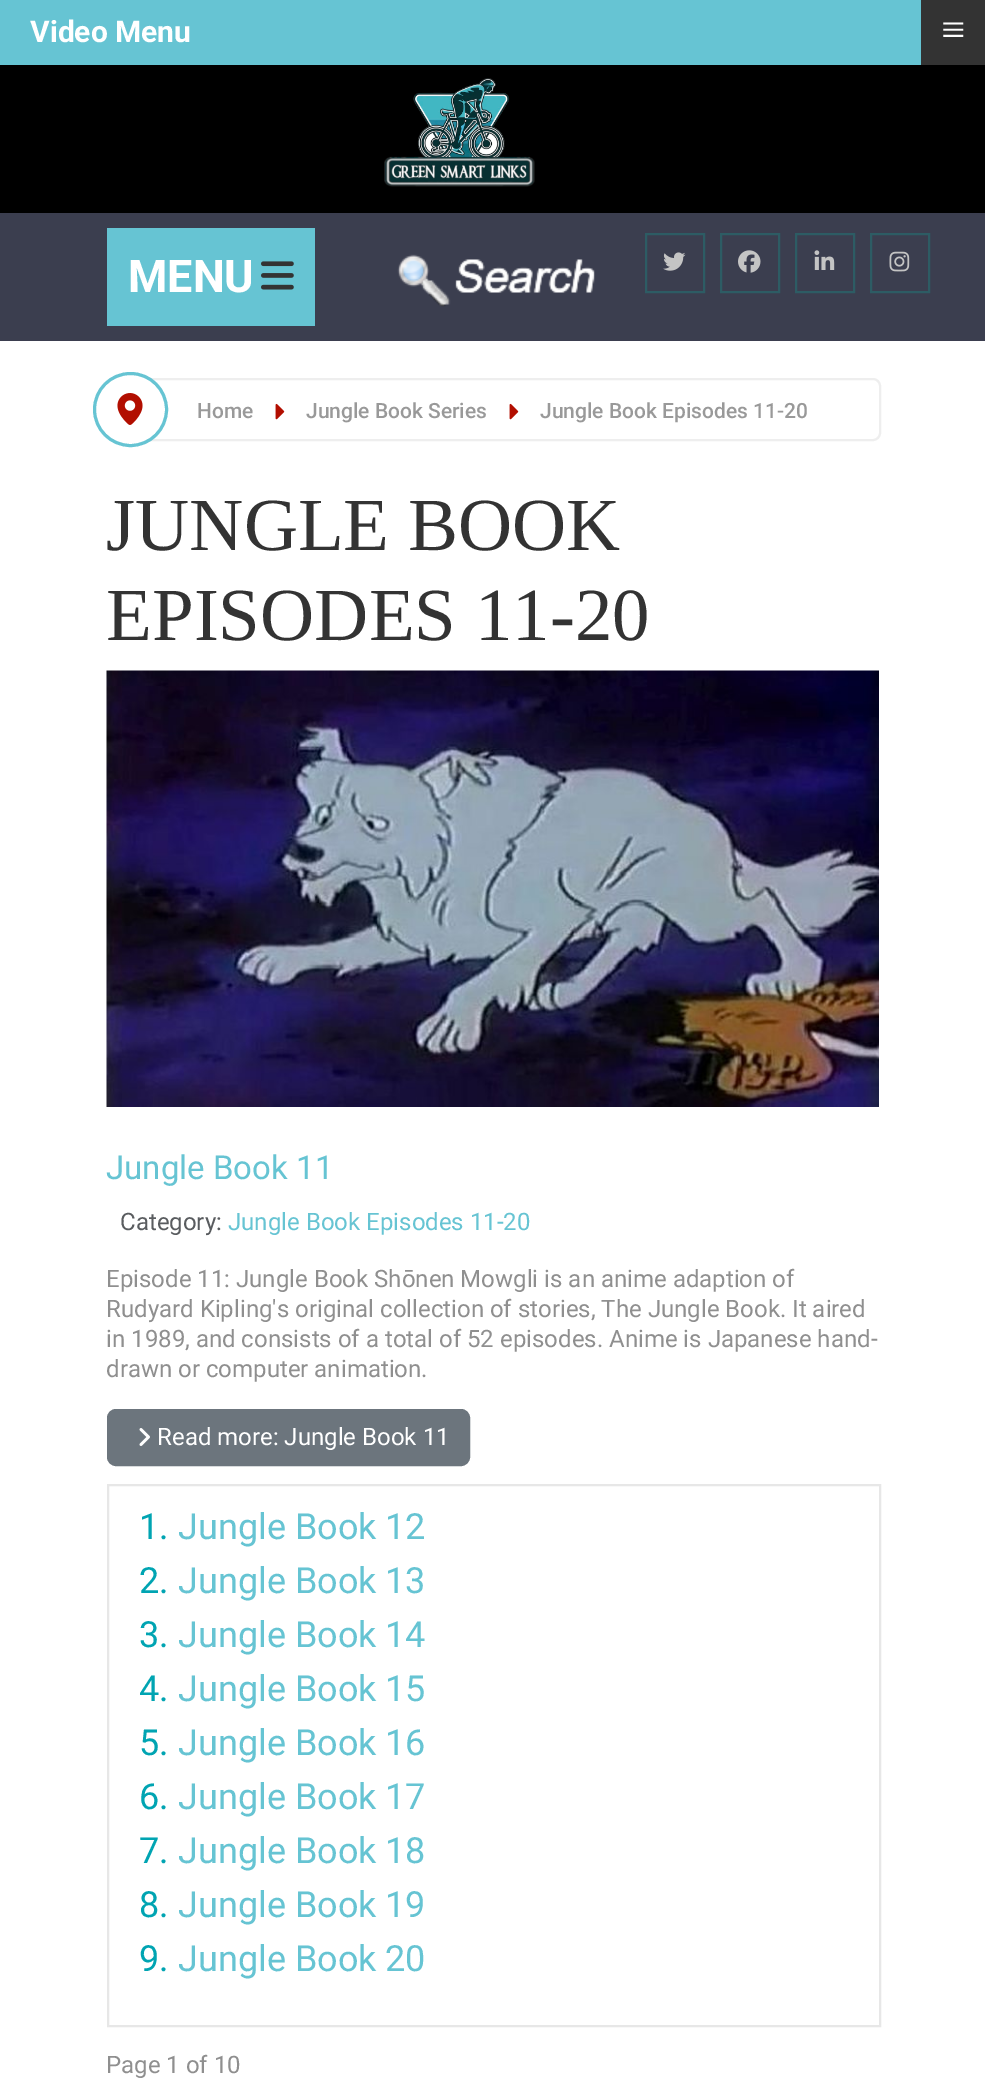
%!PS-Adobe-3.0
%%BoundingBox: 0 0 985 2093
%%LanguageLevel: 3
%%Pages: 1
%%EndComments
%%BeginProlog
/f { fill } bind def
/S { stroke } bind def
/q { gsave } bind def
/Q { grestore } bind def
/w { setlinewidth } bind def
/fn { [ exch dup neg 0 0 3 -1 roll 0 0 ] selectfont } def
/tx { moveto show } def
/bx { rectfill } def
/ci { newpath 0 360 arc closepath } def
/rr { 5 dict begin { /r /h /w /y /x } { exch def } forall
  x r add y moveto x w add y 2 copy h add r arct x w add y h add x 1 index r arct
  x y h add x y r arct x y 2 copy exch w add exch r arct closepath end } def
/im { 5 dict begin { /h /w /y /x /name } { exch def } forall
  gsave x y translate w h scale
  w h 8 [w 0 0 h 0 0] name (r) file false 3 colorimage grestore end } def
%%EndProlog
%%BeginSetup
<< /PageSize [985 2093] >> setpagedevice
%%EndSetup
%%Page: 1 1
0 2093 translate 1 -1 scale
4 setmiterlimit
1 setgray
0 0 985 2093 bx
0.4 0.769 0.827 setrgbcolor
0 0 921 65 bx
/Roboto-Bold 30 fn
1 setgray
(Video Menu) 30 42 tx
0.2 setgray
921 0 64 65 bx
/LiberationSerif-Regular 43 fn
1 setgray
(≡) 941 44 tx
0 setgray
0 65 985 148 bx
(image0.raw) 384 78 151 109 im
0.231 0.243 0.31 setrgbcolor
0 213 985 128 bx
0.4 0.769 0.827 setrgbcolor
107 228 208 98 bx
/Roboto-Bold 45 fn
1 setgray
(MENU) 128 292 tx
(image1.raw) 261 261 33 29 im
(image2.raw) 397 254 198 53 im
0.176 0.361 0.392 setrgbcolor
2 w
646 234 58 58 rectstroke
(image3.raw) 663 252 23 19 im
721 234 58 58 rectstroke
(image4.raw) 738 250 23 23 im
796 234 58 58 rectstroke
(image5.raw) 814 250 21 20 im
871 234 58 58 rectstroke
(image6.raw) 889 251 21 21 im
0.933 setgray
108 379 772 61 7 rr S
1 setgray
130.5 409.5 36 ci q f Q
0.4 0.769 0.827 setrgbcolor
3 w
S
(image7.raw) 117 393 26 32 im
/Roboto-Medium 21 fn
0.6 setgray
(Home) 197 418 tx
(image8.raw) 275 403 10 17 im
(Jungle Book Series) 306 418 tx
(image8.raw) 509 403 10 17 im
(Jungle Book Episodes 11-20) 540 418 tx
/LiberationSerif-Regular 75 fn
0.2 setgray
(JUNGLE BOOK) 106 550 tx
(EPISODES 11-20) 106 640 tx
(image9.raw) 106 670 773 437 im
/Roboto-Regular 33 fn
0.4 0.769 0.827 setrgbcolor
(Jungle Book 11) 106 1179 tx
/Roboto-Regular 24 fn
0.349 0.361 0.373 setrgbcolor
(Category:) 120 1230 tx
0.4 0.769 0.827 setrgbcolor
(Jungle Book Episodes 11-20) 228 1230 tx
0.561 setgray
(Episode 11: Jungle Book Shōnen Mowgli is an anime adaption of) 106 1287 tx
(Rudyard Kipling's original collection of stories, The Jungle Book. It aired) 106 1317 tx
(in 1989, and consists of a total of 52 episodes. Anime is Japanese hand-) 106 1347 tx
(drawn or computer animation.) 106 1377 tx
0.424 0.459 0.49 setrgbcolor
108 1410 361 55 8 rr q f Q
2 w
S
(image10.raw) 139 1428 11 18 im
1 setgray
(Read more: Jungle Book 11) 157 1445 tx
0.906 setgray
108 1485 772 541 rectstroke
/Roboto-Regular 36 fn
0 0.643 0.698 setrgbcolor
(1.) 139 1539 tx
0.4 0.769 0.827 setrgbcolor
(Jungle Book 12) 178 1539 tx
0 0.643 0.698 setrgbcolor
(2.) 139 1593 tx
0.4 0.769 0.827 setrgbcolor
(Jungle Book 13) 178 1593 tx
0 0.643 0.698 setrgbcolor
(3.) 139 1647 tx
0.4 0.769 0.827 setrgbcolor
(Jungle Book 14) 178 1647 tx
0 0.643 0.698 setrgbcolor
(4.) 139 1701 tx
0.4 0.769 0.827 setrgbcolor
(Jungle Book 15) 178 1701 tx
0 0.643 0.698 setrgbcolor
(5.) 139 1755 tx
0.4 0.769 0.827 setrgbcolor
(Jungle Book 16) 178 1755 tx
0 0.643 0.698 setrgbcolor
(6.) 139 1809 tx
0.4 0.769 0.827 setrgbcolor
(Jungle Book 17) 178 1809 tx
0 0.643 0.698 setrgbcolor
(7.) 139 1863 tx
0.4 0.769 0.827 setrgbcolor
(Jungle Book 18) 178 1863 tx
0 0.643 0.698 setrgbcolor
(8.) 139 1917 tx
0.4 0.769 0.827 setrgbcolor
(Jungle Book 19) 178 1917 tx
0 0.643 0.698 setrgbcolor
(9.) 139 1971 tx
0.4 0.769 0.827 setrgbcolor
(Jungle Book 20) 178 1971 tx
/Roboto-Regular 24 fn
0.561 setgray
(Page 1 of 10) 106 2073 tx
showpage
%%EOF
